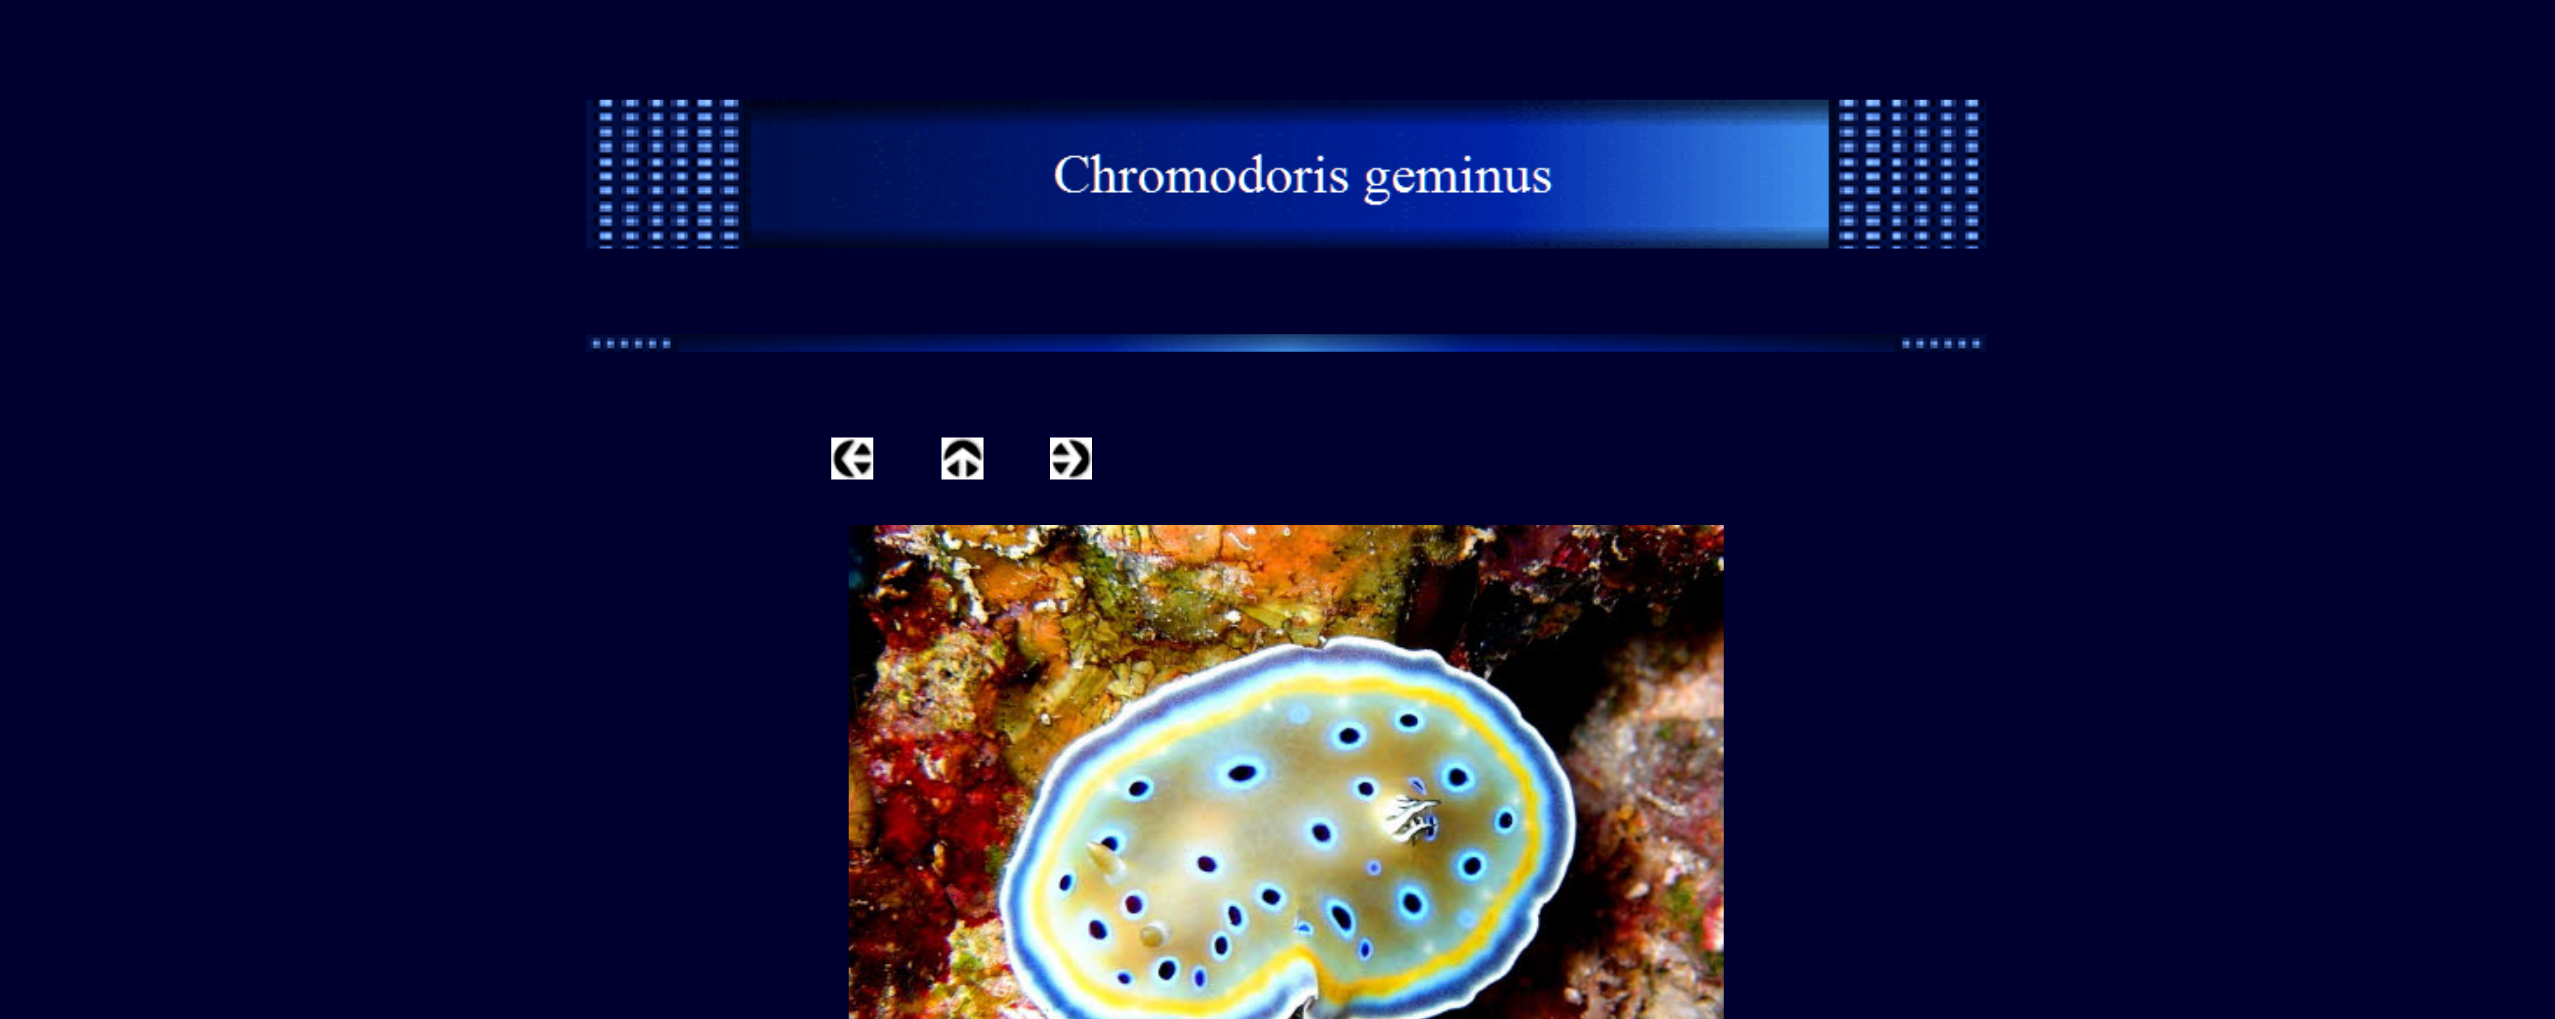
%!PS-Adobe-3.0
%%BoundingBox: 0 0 2555 1019
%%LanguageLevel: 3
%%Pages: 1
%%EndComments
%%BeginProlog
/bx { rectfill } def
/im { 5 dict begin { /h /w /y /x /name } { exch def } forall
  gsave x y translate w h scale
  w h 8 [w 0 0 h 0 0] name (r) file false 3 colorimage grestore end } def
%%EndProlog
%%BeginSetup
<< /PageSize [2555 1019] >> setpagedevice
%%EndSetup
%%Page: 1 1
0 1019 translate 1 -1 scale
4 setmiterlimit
0 0 0.188 setrgbcolor
0 0 2555 1019 bx
(image0.raw) 586 99 1401 150 im
(image1.raw) 586 334 1401 18 im
(image2.raw) 831 437 43 43 im
(image3.raw) 941 437 43 43 im
(image4.raw) 1050 437 42 43 im
(image5.raw) 848 525 876 494 im
showpage
%%EOF
